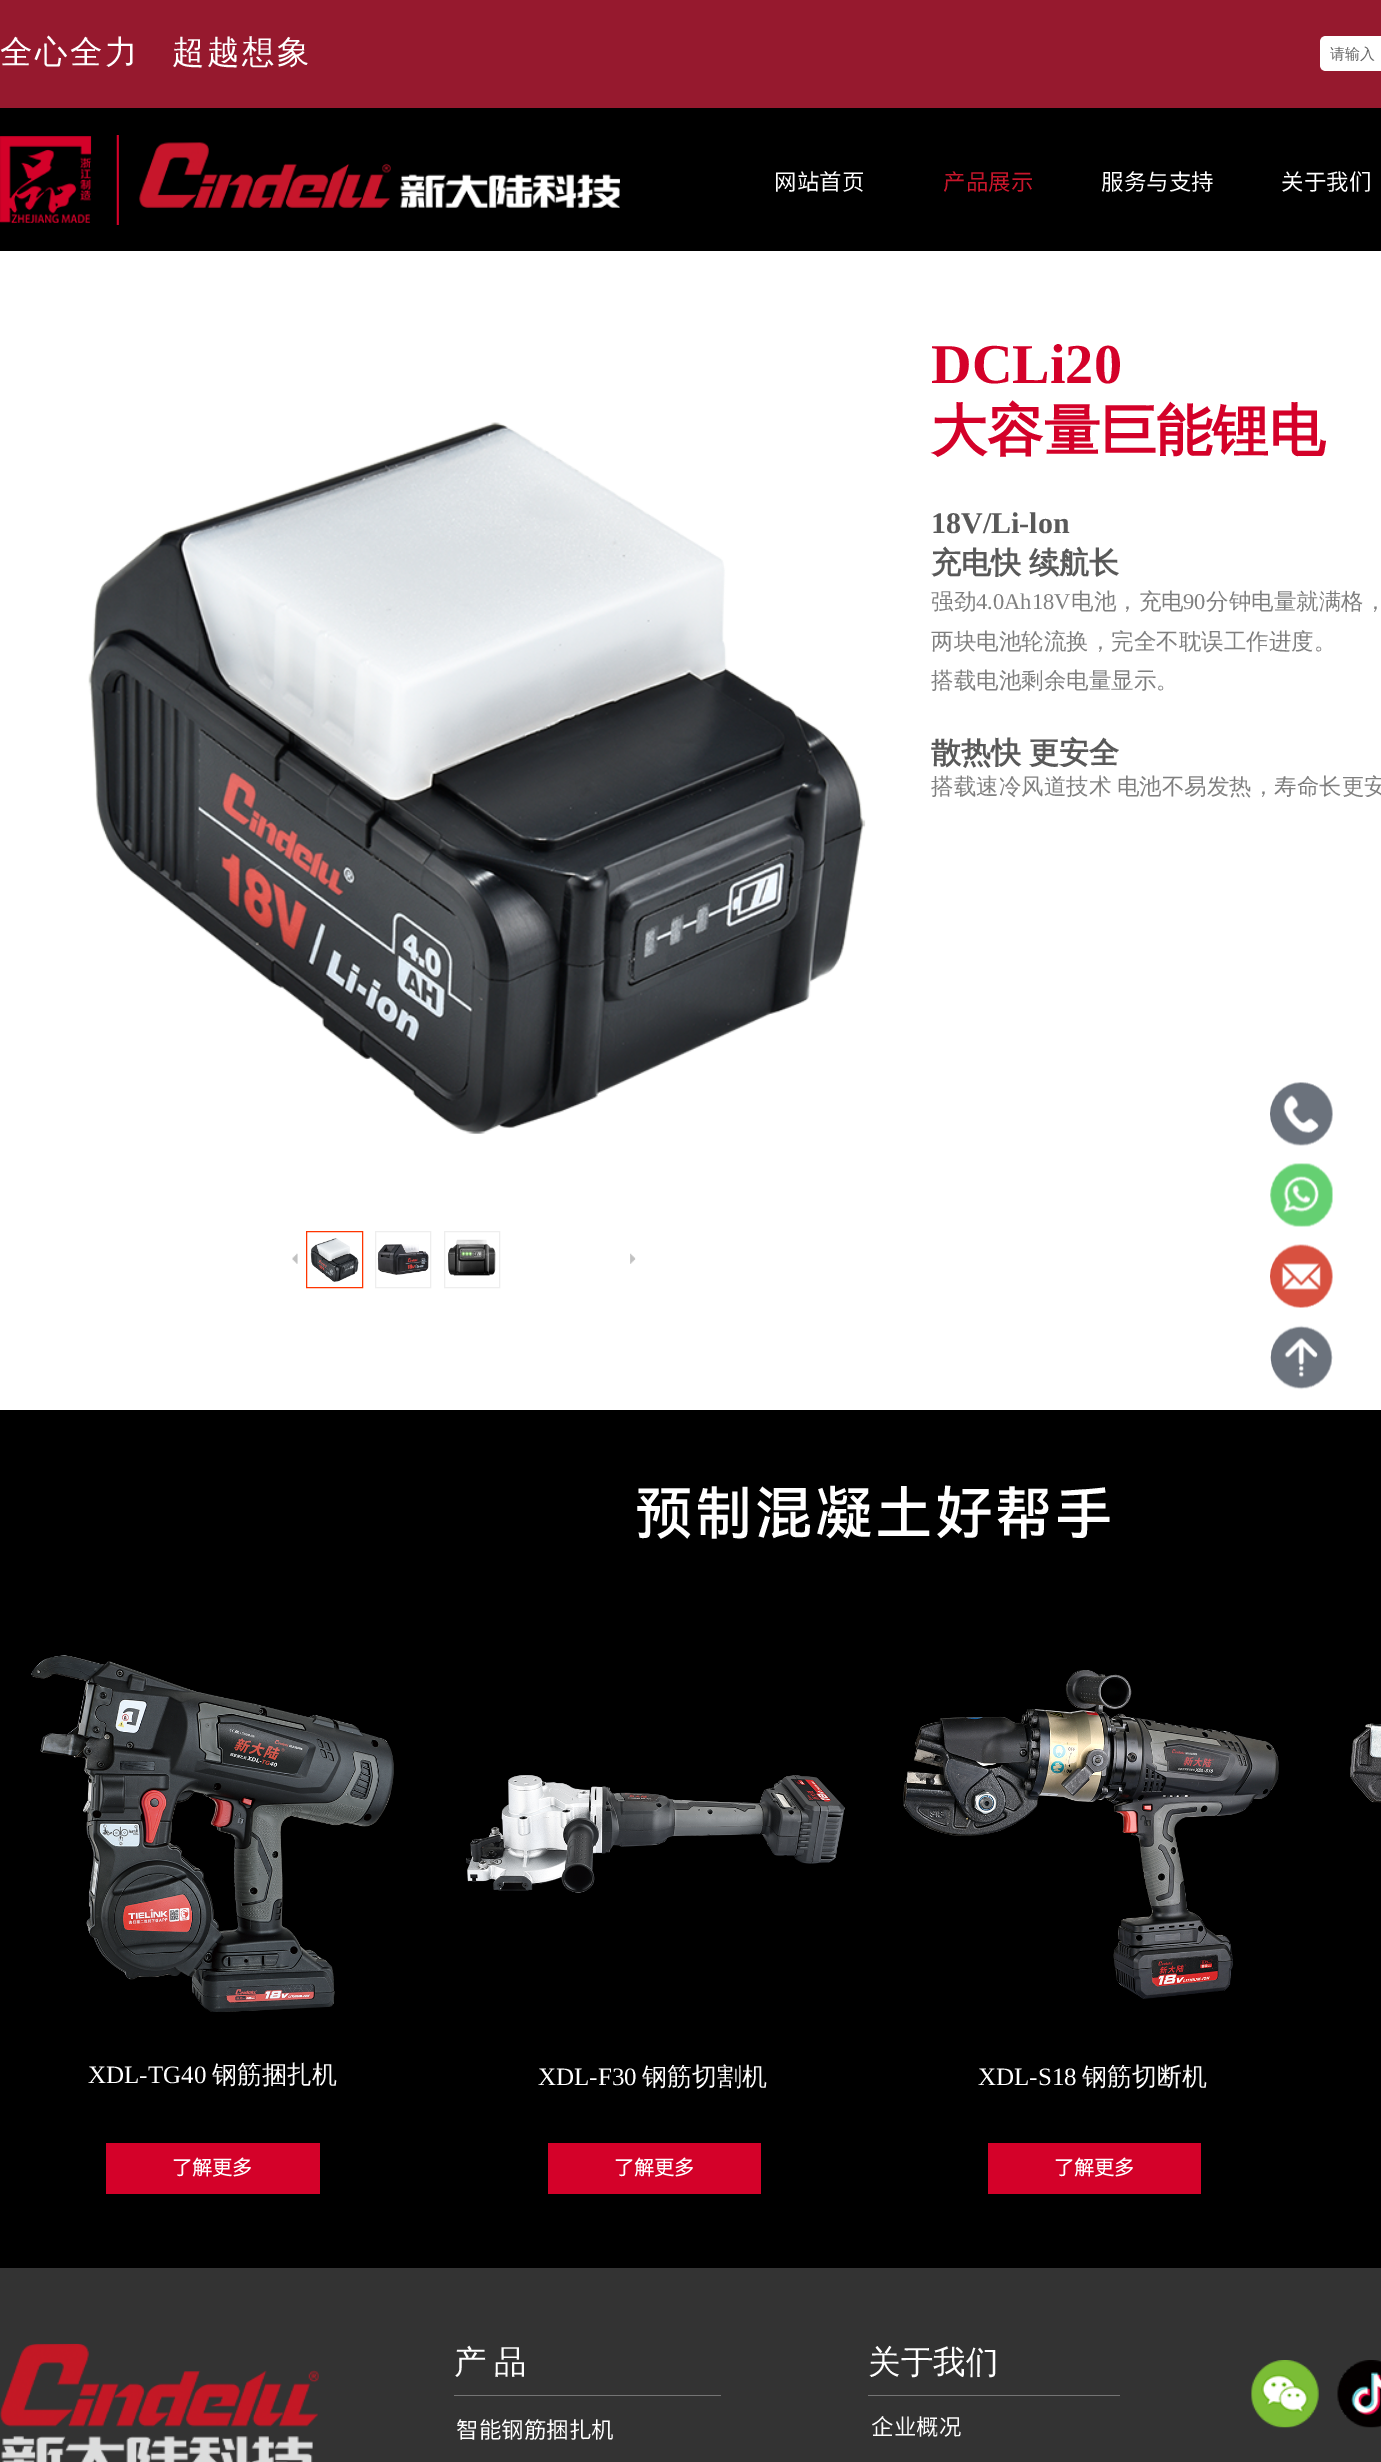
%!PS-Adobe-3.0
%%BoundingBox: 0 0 1381 2462
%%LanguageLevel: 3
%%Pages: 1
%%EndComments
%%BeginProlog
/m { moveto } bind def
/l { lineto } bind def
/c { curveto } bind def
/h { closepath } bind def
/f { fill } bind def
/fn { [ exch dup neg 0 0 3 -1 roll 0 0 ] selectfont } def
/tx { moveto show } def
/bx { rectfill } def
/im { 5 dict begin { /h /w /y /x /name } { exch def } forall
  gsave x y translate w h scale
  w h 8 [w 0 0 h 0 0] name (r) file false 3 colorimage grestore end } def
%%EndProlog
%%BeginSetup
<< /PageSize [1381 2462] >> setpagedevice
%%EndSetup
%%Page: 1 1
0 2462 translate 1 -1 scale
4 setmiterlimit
1 setgray
0 0 1381 2462 bx
0.588 0.098 0.18 setrgbcolor
0 0 1381 108 bx
/WenQuanYiZenHei-Medium 32.5 fn
1 setgray
0 63 m 2.5 0 (全心全力) ashow
172 63 m 2.5 0 (超越想象) ashow
1326 36 m 1381 36 l 1381 71 l 1326 71 l 1322.5 71 1320 68.5 1320 65 c 1320 42 l 1320 38.5 1322.5 36 1326 36 c h f
/WenQuanYiZenHei-Medium 15 fn
0.4 setgray
(请输入) 1330 59 tx
0 setgray
0 108 1381 143 bx
(image0.raw) 0 135 620 90 im
/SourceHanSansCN-Regular 22.5 fn
1 setgray
(网站首页) 774 190 tx
0.78 0.086 0.169 setrgbcolor
(产品展示) 943 190 tx
1 setgray
(服务与支持) 1101 190 tx
(关于我们) 1281 190 tx
(image1.raw) 88 422 778 712 im
(image2.raw) 292 1253 6 11 im
1 0.208 0 setrgbcolor
306.5 1231.5 56 56 rectstroke
(image3.raw) 310 1238 49 44 im
0.933 setgray
375.5 1231.5 55 56 rectstroke
(image4.raw) 377 1244 52 31 im
444.5 1231.5 55 56 rectstroke
(image5.raw) 448 1239 48 37 im
(image6.raw) 630 1253 6 11 im
/LiberationSerif-Bold 56.25 fn
0.831 0.004 0.161 setrgbcolor
(DCLi20) 931 383 tx
/WenQuanYiZenHei-Bold 56.25 fn
(大容量巨能锂电) 931 450 tx
/LiberationSerif-Bold 30 fn
0.349 setgray
(18V/Li-lon) 931 533 tx
/WenQuanYiZenHei-Bold 30 fn
931 573 m -1 0 32 (充电快 续航长) widthshow
/WenQuanYiZenHei-Medium 22.5 fn
0.498 setgray
(强劲) 931 609 tx
/LiberationSerif-Regular 22.5 fn
(4.0Ah18V) 976 609 tx
/WenQuanYiZenHei-Medium 22.5 fn
(电池，充电) 1071 609 tx
/LiberationSerif-Regular 22.5 fn
(90) 1183 609 tx
/WenQuanYiZenHei-Medium 22.5 fn
(分钟电量就满格，) 1206 609 tx
(两块电池轮流换，完全不耽误工作进度。) 931 649 tx
(搭载电池剩余电量显示。) 931 688 tx
/WenQuanYiZenHei-Bold 30 fn
0.349 setgray
931 763 m -1 0 32 (散热快 更安全) widthshow
/WenQuanYiZenHei-Medium 22.5 fn
0.498 setgray
931 794 m -1 0 32 (搭载速冷风道技术 电池不易发热，寿命长更安) widthshow
0 setgray
0 1410 1381 858 bx
/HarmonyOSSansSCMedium-Medium 57.5 fn
1 setgray
635 1534 m 2.5 0 (预制混凝土好帮手) ashow
(image7.raw) 31 1655 363 357 im
(image8.raw) 903 1670 376 329 im
(image9.raw) 1350 1723 31 80 im
(image10.raw) 466 1775 379 118 im
/LiberationSerif-Regular 25 fn
(XDL-TG40) 88 2083 tx
/WenQuanYiZenHei-Medium 25 fn
(钢筋捆扎机) 212 2083 tx
/LiberationSerif-Regular 25 fn
(XDL-F30) 538 2085 tx
/WenQuanYiZenHei-Medium 25 fn
(钢筋切割机) 642 2085 tx
/LiberationSerif-Regular 25 fn
(XDL-S18) 978 2085 tx
/WenQuanYiZenHei-Medium 25 fn
(钢筋切断机) 1082 2085 tx
0.831 0.004 0.161 setrgbcolor
106 2143 214 51 bx
/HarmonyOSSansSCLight-Bold 20 fn
1 setgray
(了解更多) 172 2175 tx
0.831 0.004 0.161 setrgbcolor
548 2143 213 51 bx
1 setgray
(了解更多) 614 2175 tx
0.831 0.004 0.161 setrgbcolor
988 2143 213 51 bx
1 setgray
(了解更多) 1054 2175 tx
0.2 setgray
0 2268 1381 194 bx
(image11.raw) 0 2343 319 119 im
0.455 setgray
454 2395 267 1 bx
/WenQuanYiZenHei-Medium 32.5 fn
1 setgray
(产) 454 2373 tx
(品) 494 2373 tx
0.455 setgray
868 2395 252 1 bx
1 setgray
(关于我们) 868 2373 tx
(image12.raw) 1251 2360 130 68 im
/SourceHanSansCN-Regular 22.5 fn
(智能钢筋捆扎机) 456 2438 tx
(企业概况) 871 2435 tx
(image13.raw) 1270 1082 63 64 im
(image14.raw) 1270 1163 63 64 im
(image15.raw) 1270 1244 63 64 im
(image16.raw) 1270 1325 63 65 im
showpage
%%EOF
